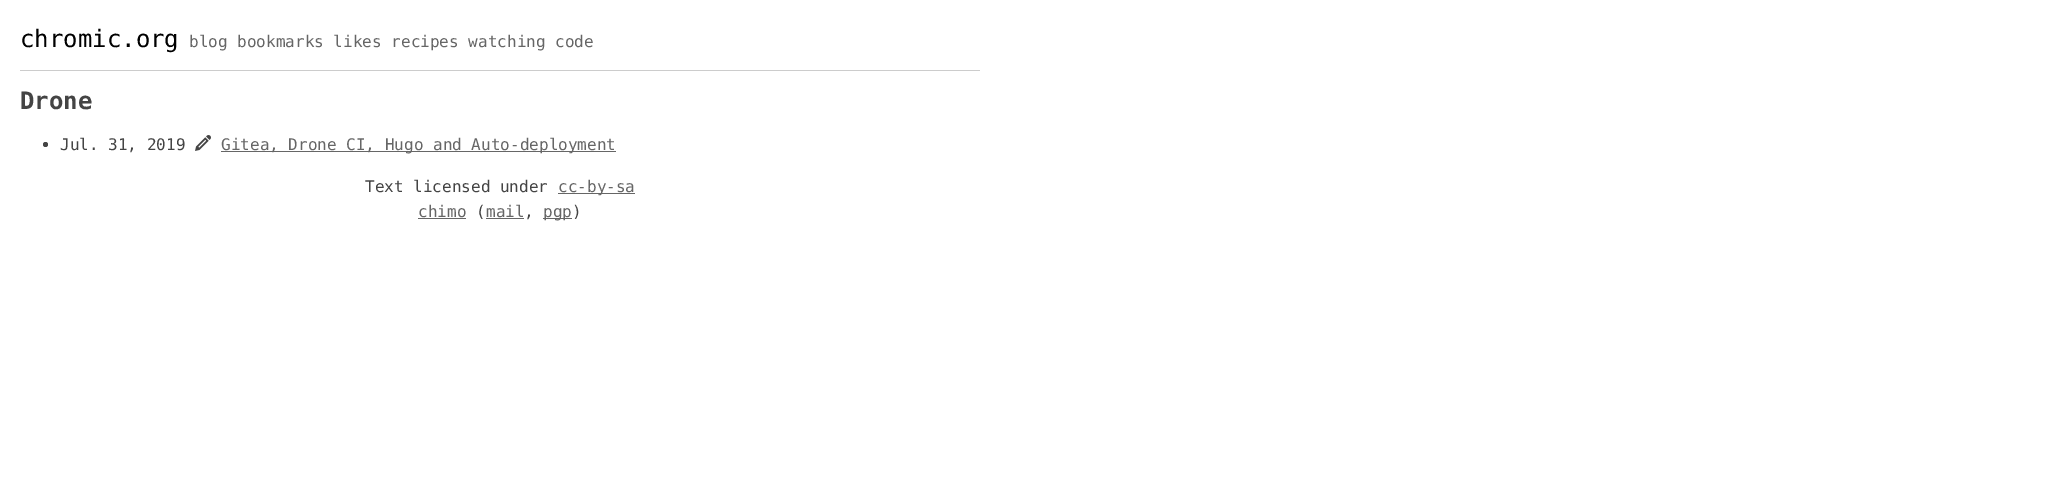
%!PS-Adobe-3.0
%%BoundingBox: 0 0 2071 490
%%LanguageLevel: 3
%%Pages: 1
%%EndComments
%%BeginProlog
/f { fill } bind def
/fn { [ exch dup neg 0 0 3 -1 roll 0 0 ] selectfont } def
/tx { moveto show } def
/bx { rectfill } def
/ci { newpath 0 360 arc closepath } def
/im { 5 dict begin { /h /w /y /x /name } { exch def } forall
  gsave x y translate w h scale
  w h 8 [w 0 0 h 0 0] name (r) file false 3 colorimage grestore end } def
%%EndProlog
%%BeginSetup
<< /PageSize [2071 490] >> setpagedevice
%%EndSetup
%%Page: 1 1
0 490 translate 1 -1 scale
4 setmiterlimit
1 setgray
0 0 2071 490 bx
0.8 setgray
20 70 960 1 bx
/DejaVuSansMono-Regular 24 fn
0 setgray
(chromic.org) 20 47 tx
/DejaVuSansMono-Regular 16 fn
0.4 setgray
(blog bookmarks likes recipes watching code) 189 47 tx
/DejaVuSansMono-Bold 24 fn
0.267 setgray
(Drone) 20 109 tx
45.5 144.5 2.5 ci f
/DejaVuSansMono-Regular 16 fn
(Jul. 31, 2019) 60 150 tx
(image0.raw) 195 135 16 16 im
0.4 setgray
221 151 395 1 bx
(Gitea, Drone CI, Hugo and Auto-deployment) 221 150 tx
0.267 setgray
(Text licensed under) 365 192 tx
0.4 setgray
558 193 77 1 bx
(cc-by-sa) 558 192 tx
(chimo) 418 217 tx
418 218 48 1 bx
0.267 setgray
(\() 476 217 tx
0.4 setgray
(mail) 486 217 tx
486 218 38 1 bx
0.267 setgray
(,) 524 217 tx
0.4 setgray
543 218 29 1 bx
(pgp) 543 217 tx
0.267 setgray
(\)) 572 217 tx
showpage
%%EOF
